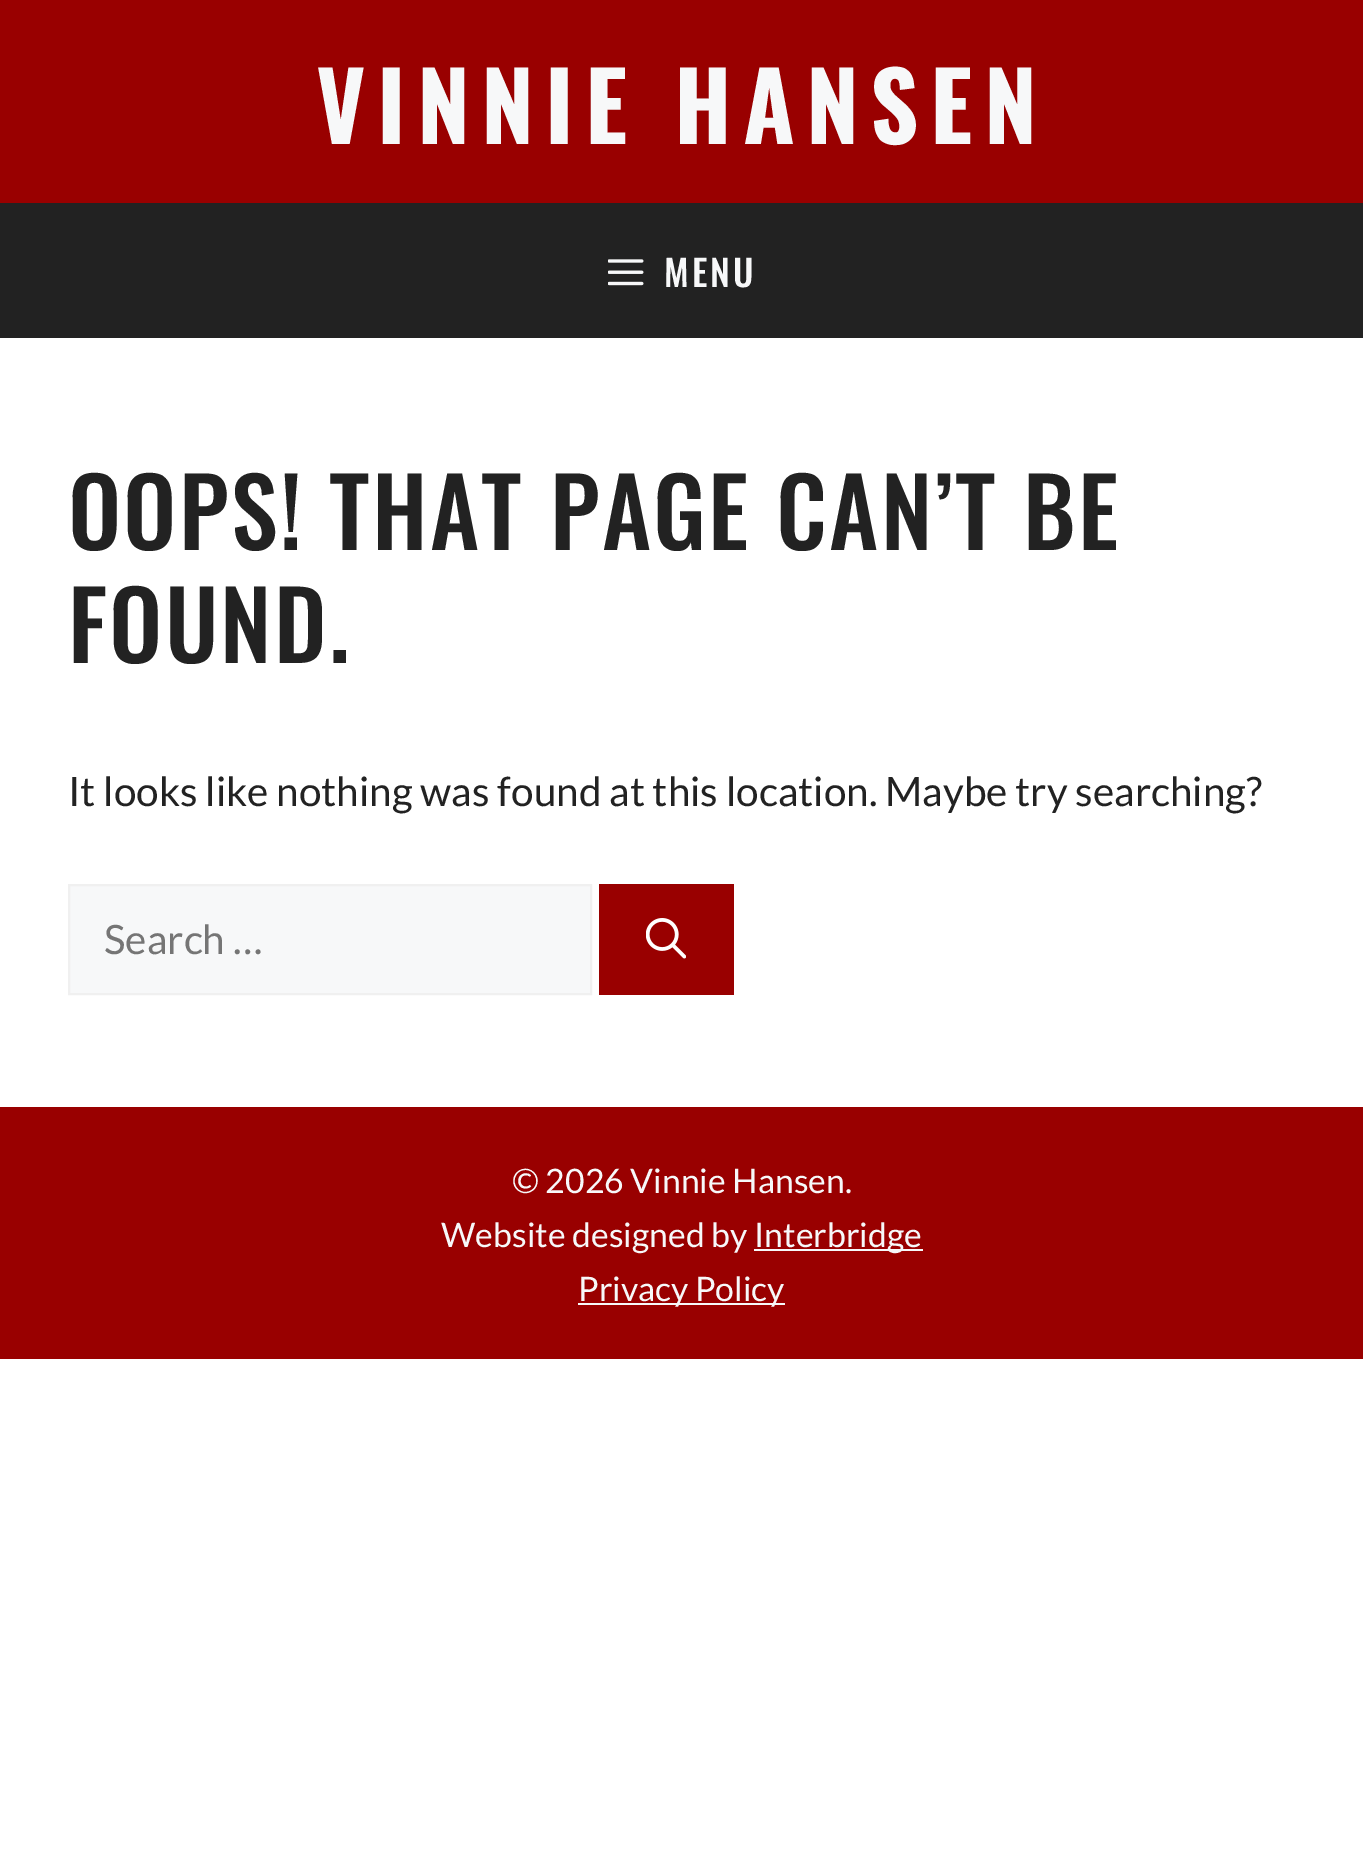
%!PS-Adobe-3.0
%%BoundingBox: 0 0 1363 1865
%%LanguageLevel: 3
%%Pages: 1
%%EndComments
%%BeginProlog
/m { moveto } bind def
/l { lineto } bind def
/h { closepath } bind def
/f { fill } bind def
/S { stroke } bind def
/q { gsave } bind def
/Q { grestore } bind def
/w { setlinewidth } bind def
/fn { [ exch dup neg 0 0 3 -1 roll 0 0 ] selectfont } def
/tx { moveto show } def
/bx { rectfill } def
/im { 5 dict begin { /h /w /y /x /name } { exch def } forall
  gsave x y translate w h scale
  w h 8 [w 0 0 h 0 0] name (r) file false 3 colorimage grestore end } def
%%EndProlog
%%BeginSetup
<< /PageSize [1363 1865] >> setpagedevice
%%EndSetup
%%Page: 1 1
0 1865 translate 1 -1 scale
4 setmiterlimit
1 setgray
0 0 1363 1865 bx
0.6 0 0 setrgbcolor
0 0 1363 203 bx
/Oswald-Bold 94.5 fn
0.969 0.973 0.976 setrgbcolor
316 144 m 11.25 0 (VINNIE HANSEN) ashow
0.133 setgray
0 203 1363 135 bx
(image0.raw) 608 259 36 27 im
/Oswald-Medium 36 fn
0.969 0.973 0.976 setrgbcolor
664 287 m 3 0 (MENU) ashow
/Oswald-Medium 94.5 fn
0.133 setgray
68 550 m 2.25 0 (OOPS! THAT PAGE CAN’T BE) ashow
68 663 m 2.25 0 (FOUND.) ashow
/Lato-Regular 40.5 fn
(It looks like nothing was found at this location. Maybe try searching?) 68 806 tx
0.969 0.973 0.976 setrgbcolor
69 885 m 591 885 l 591 994 l 69 994 l h q f Q
0.941 setgray
2 w
S
0.459 setgray
(Search …) 104 954 tx
0.6 0 0 setrgbcolor
599 884 135 111 bx
(image1.raw) 646 918 40 41 im
0 1107 1363 252 bx
/Lato-Regular 33.75 fn
0.969 0.973 0.976 setrgbcolor
(© 2026 Vinnie Hansen.) 512 1193 tx
(Website designed by) 441 1247 tx
754 1249 169 2 bx
(Interbridge) 754 1247 tx
578 1303 207 2 bx
(Privacy Policy) 578 1301 tx
showpage
%%EOF
